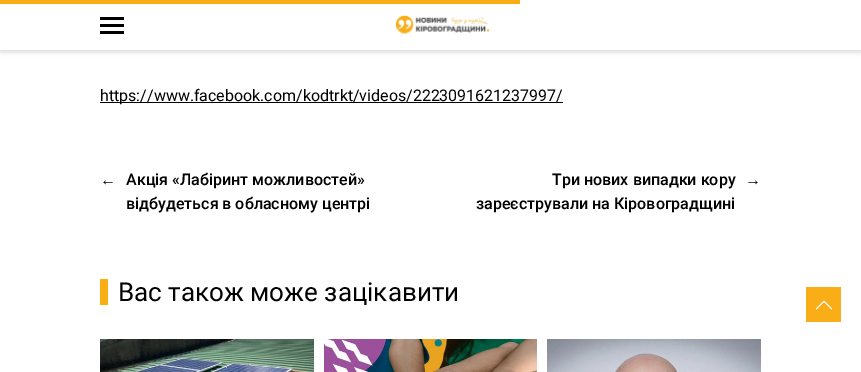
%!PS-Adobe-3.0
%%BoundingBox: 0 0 861 372
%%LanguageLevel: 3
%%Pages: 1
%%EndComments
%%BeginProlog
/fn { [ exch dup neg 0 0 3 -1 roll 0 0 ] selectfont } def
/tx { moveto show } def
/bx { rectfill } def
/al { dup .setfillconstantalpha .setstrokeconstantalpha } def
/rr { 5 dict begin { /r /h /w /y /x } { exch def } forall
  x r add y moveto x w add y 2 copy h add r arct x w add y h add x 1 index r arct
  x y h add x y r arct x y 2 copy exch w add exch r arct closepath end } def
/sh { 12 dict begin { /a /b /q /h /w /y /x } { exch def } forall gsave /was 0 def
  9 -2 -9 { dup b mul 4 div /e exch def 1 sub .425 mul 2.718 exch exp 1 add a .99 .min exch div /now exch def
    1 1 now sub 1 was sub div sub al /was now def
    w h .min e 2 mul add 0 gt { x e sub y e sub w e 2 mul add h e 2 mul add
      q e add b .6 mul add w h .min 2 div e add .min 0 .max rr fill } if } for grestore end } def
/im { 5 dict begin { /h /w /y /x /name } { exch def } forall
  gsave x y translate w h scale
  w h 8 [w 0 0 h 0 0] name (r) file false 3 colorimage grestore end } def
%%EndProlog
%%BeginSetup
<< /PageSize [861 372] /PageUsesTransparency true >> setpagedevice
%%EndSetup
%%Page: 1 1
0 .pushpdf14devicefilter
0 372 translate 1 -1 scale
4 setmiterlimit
1 setgray
0 0 861 372 bx
0 setgray
0 2 861 50 0 2.5 0.15 sh
1 setgray
0 0 861 50 bx
0 setgray
100 17 24 3 bx
100 24 24 3 bx
100 31 24 3 bx
(image0.raw) 395 15 95 19 im
0.976 0.682 0.09 setrgbcolor
0 0 520 4 bx
0 setgray
100 102 463 1 bx
/Roboto-Regular 16 fn
(https://www.facebook.com/kodtrkt/videos/2223091621237997/) 100 101 tx
/LiberationSans-Regular 16 fn
(←) 100 185 tx
/Roboto-Medium 16 fn
(Акція «Лабіринт можливостей») 126 185 tx
(відбудеться в обласному центрі) 126 209 tx
(Три нових випадки кору) 552 185 tx
(зареєстрували на Кіровоградщині) 476 209 tx
/LiberationSans-Regular 16 fn
(→) 745 185 tx
0.976 0.682 0.09 setrgbcolor
100 279 8 26 bx
/Roboto-Regular 26 fn
0 setgray
(Вас також може зацікавити) 118 301 tx
(image1.raw) 100 339 214 33 im
(image2.raw) 324 339 213 33 im
(image3.raw) 547 339 214 33 im
0.976 0.682 0.09 setrgbcolor
806 287 35 35 bx
(image4.raw) 815 300 18 10 im
.poppdf14devicefilter showpage
%%EOF
